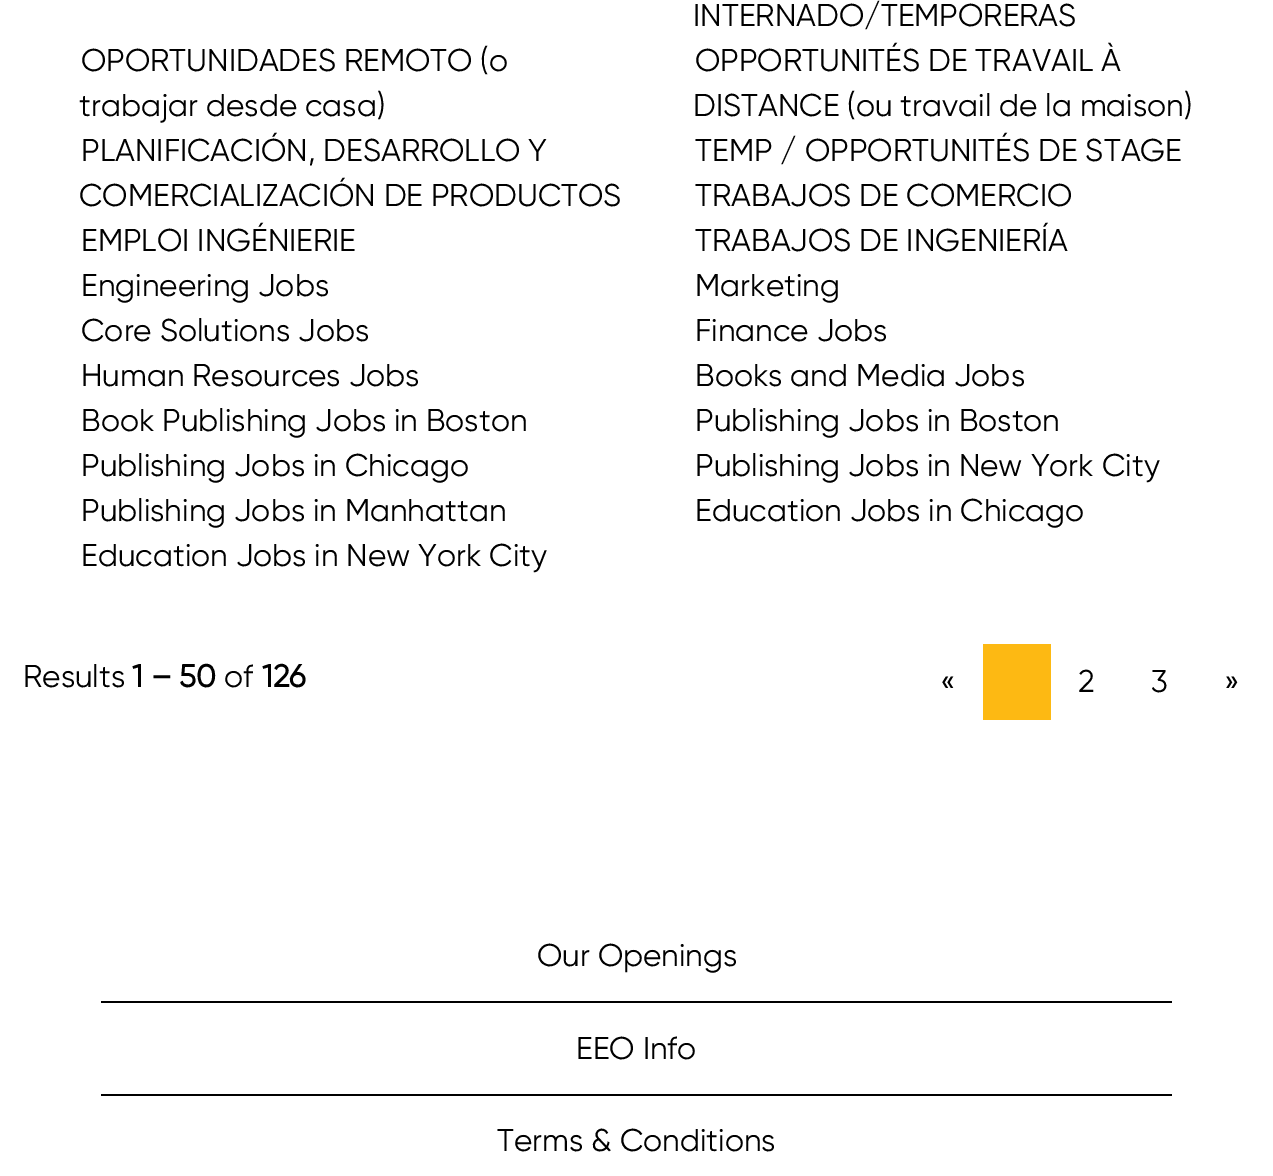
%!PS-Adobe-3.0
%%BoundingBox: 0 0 1273 1176
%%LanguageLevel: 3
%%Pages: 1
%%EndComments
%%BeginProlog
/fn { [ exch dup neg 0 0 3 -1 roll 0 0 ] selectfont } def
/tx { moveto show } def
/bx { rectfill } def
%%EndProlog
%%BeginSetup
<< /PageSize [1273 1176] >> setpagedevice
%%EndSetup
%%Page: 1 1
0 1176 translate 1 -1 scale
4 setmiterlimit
1 setgray
0 0 1273 1176 bx
/Gilroy-Regular 31.5 fn
0 setgray
(INTERNADO/TEMPORERAS) 693 26 tx
(OPORTUNIDADES REMOTO \(o) 81 71 tx
(trabajar desde casa\)) 79 116 tx
(OPPORTUNITÉS DE TRAVAIL À) 695 71 tx
(DISTANCE \(ou travail de la maison\)) 693 116 tx
(PLANIFICACIÓN, DESARROLLO Y) 81 161 tx
(COMERCIALIZACIÓN DE PRODUCTOS) 79 206 tx
(TEMP / OPPORTUNITÉS DE STAGE) 695 161 tx
(TRABAJOS DE COMERCIO) 695 206 tx
(EMPLOI INGÉNIERIE) 81 251 tx
(TRABAJOS DE INGENIERÍA) 695 251 tx
(Engineering Jobs) 81 296 tx
(Marketing) 695 296 tx
(Core Solutions Jobs) 81 341 tx
(Finance Jobs) 695 341 tx
(Human Resources Jobs) 81 386 tx
(Books and Media Jobs) 695 386 tx
(Book Publishing Jobs in Boston) 81 431 tx
(Publishing Jobs in Boston) 695 431 tx
(Publishing Jobs in Chicago) 81 476 tx
(Publishing Jobs in New York City) 695 476 tx
(Publishing Jobs in Manhattan) 81 521 tx
(Education Jobs in Chicago) 695 521 tx
(Education Jobs in New York City) 81 566 tx
(Results) 23 687 tx
/Gilroy-Bold 31.5 fn
(1 – 50) 132 687 tx
/Gilroy-Regular 31.5 fn
(of) 224 687 tx
/Gilroy-Bold 31.5 fn
(126) 262 687 tx
/Gilroy-Regular 31.5 fn
(«) 940 692 tx
0.992 0.725 0.075 setrgbcolor
983 644 68 76 bx
0 setgray
(2) 1078 692 tx
(3) 1151 692 tx
(») 1224 692 tx
101 1001 1071 2 bx
(Our Openings) 537 966 tx
101 1094 1071 2 bx
(EEO Info) 576 1059 tx
(Terms & Conditions) 497 1151 tx
showpage
%%EOF
